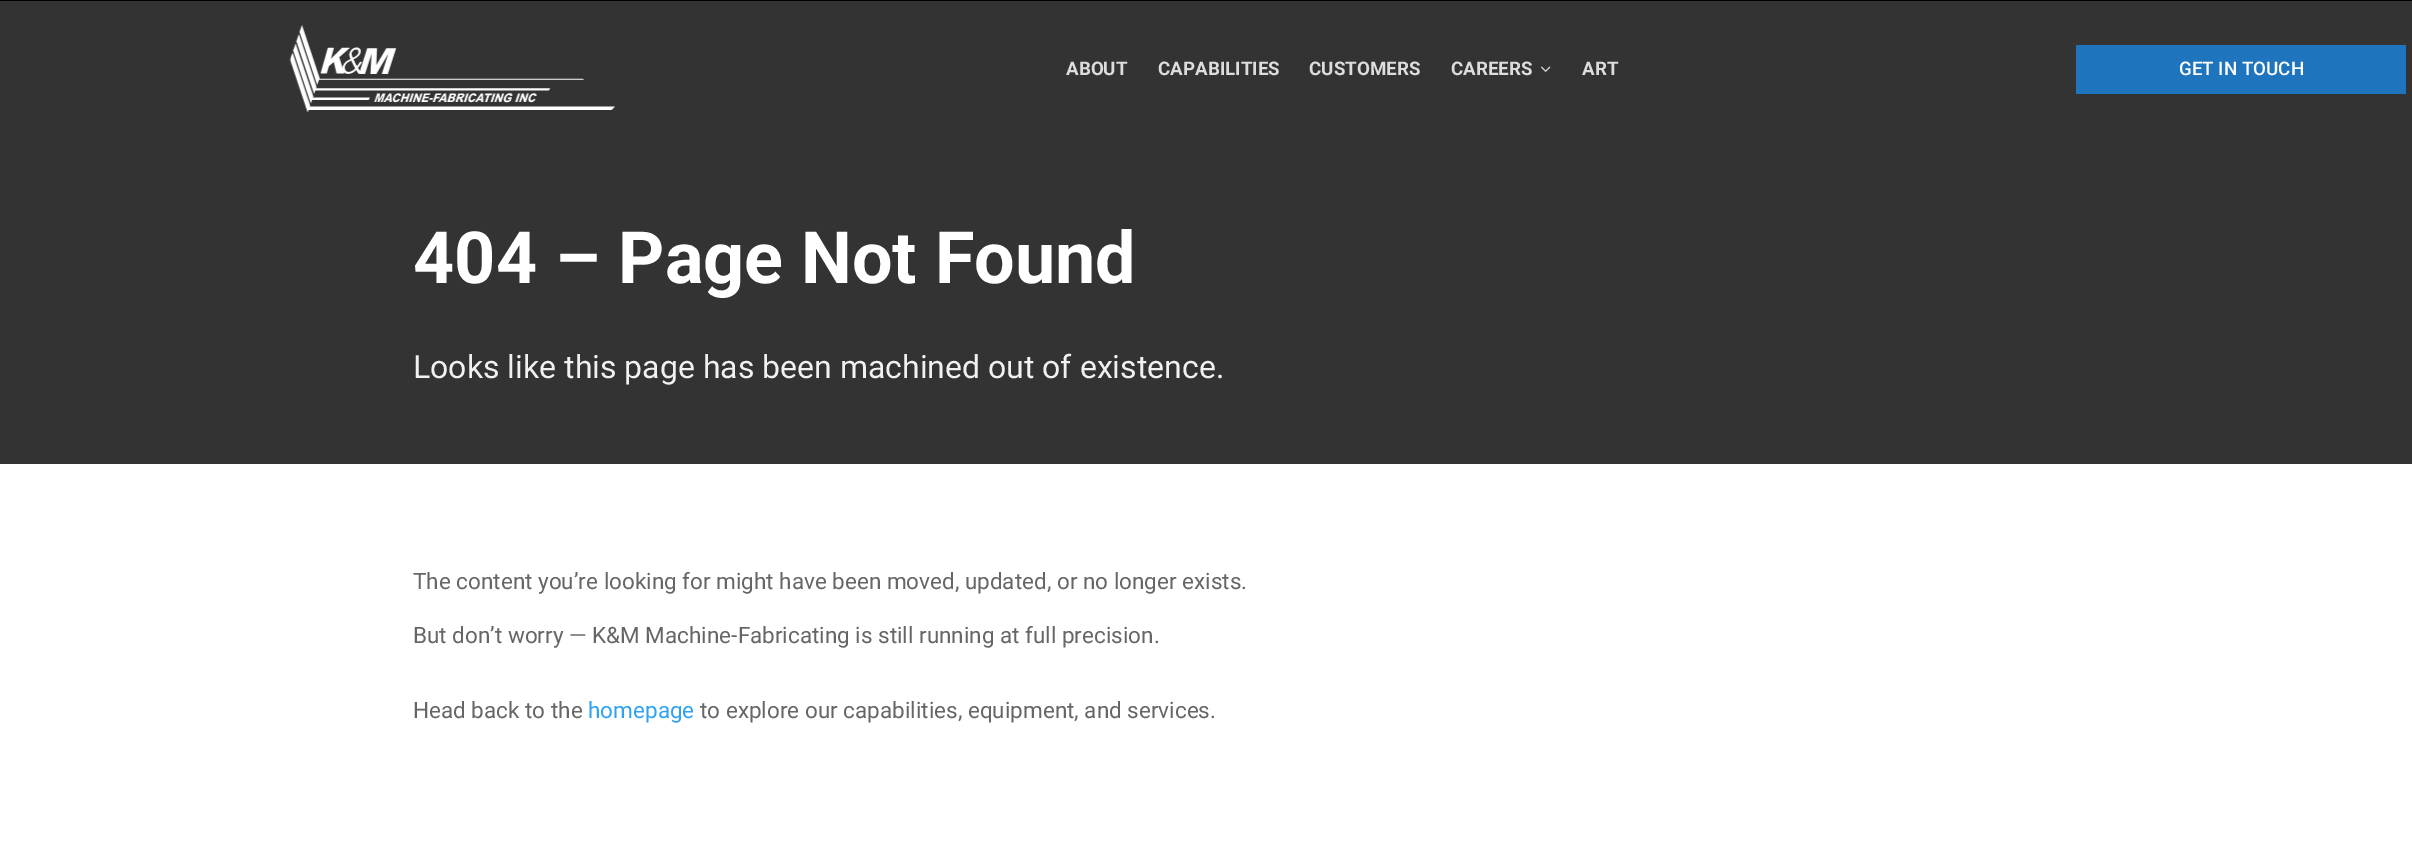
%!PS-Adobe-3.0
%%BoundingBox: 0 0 2412 844
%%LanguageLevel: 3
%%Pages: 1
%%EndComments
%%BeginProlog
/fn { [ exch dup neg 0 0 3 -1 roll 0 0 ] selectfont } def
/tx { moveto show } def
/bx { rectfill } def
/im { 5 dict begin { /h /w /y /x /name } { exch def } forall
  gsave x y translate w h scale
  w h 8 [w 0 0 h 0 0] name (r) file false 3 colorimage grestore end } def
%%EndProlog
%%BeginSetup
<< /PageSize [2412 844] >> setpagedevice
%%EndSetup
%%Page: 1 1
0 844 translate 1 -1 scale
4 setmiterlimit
0 setgray
0 0 2412 844 bx
0.2 setgray
0 1 2412 463 bx
(image0.raw) 289 25 326 87 im
/Roboto-Bold 18.75 fn
0.867 setgray
(ABOUT) 1066 75 tx
(CAPABILITIES) 1158 75 tx
(CUSTOMERS) 1309 75 tx
(CAREERS) 1451 75 tx
(image1.raw) 1541 66 10 6 im
(ART) 1582 75 tx
0.118 0.459 0.745 setrgbcolor
2076 45 330 49 bx
/Roboto-Medium 18.75 fn
1 setgray
(GET IN TOUCH) 2179 75 tx
/Roboto-Bold 72 fn
(404 – Page Not Found) 413 283 tx
/Roboto-Regular 32 fn
0.945 setgray
(Looks like this page has been machined out of existence.) 413 378 tx
1 setgray
0 464 2412 380 bx
/Roboto-Regular 22.5 fn
0.4 setgray
(The content you’re looking for might have been moved, updated, or no longer exists.) 413 589 tx
(But don’t worry — K&M Machine-Fabricating is still running at full precision.) 413 643 tx
(Head back to the) 413 718 tx
0.18 0.639 0.949 setrgbcolor
(homepage) 588 718 tx
0.4 setgray
(to explore our capabilities, equipment, and services.) 700 718 tx
showpage
%%EOF
